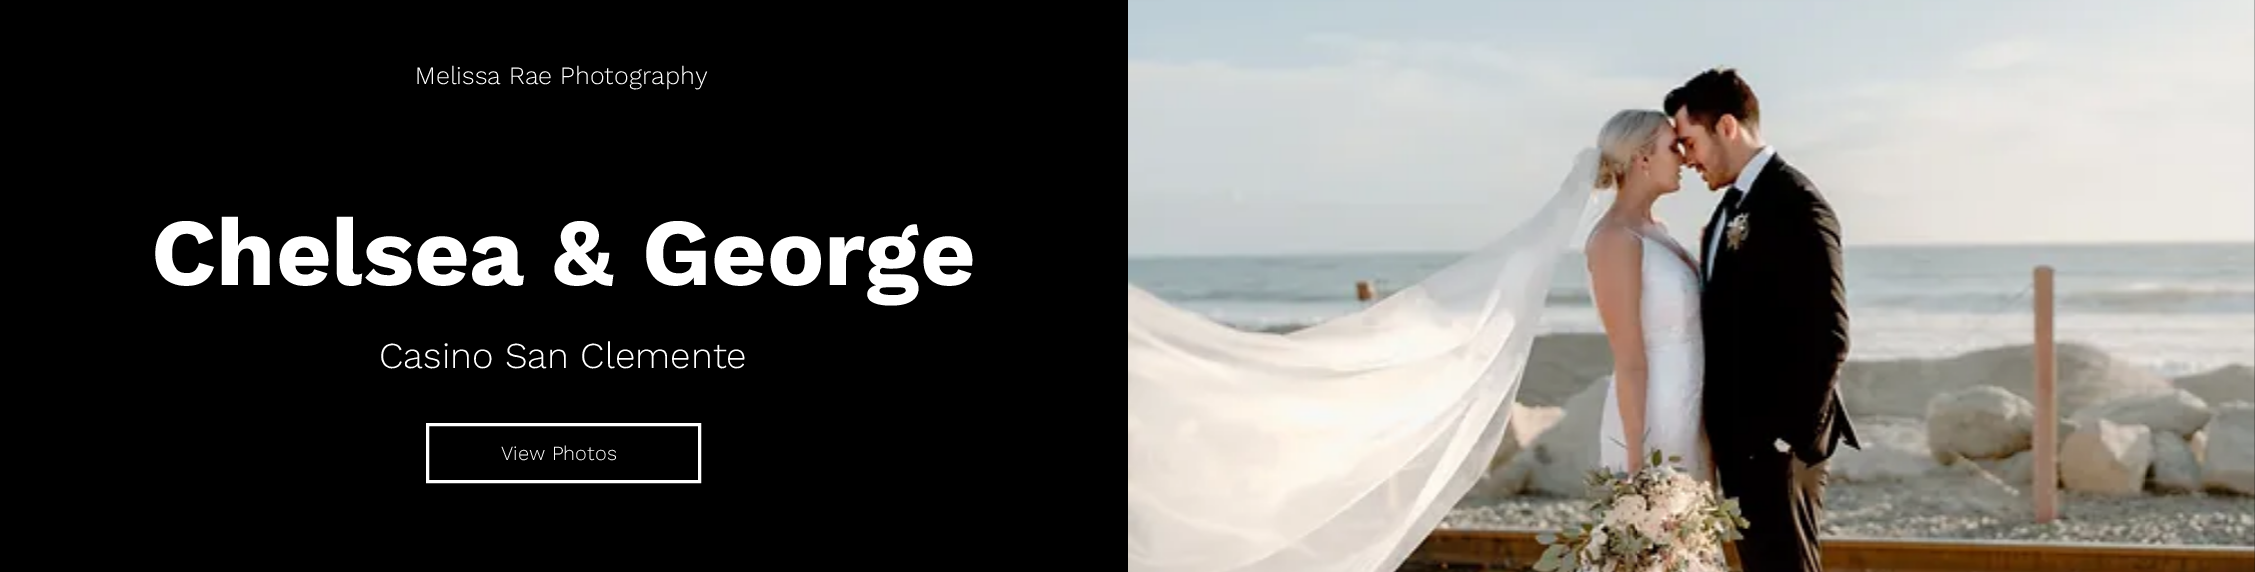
%!PS-Adobe-3.0
%%BoundingBox: 0 0 2255 572
%%LanguageLevel: 3
%%Pages: 1
%%EndComments
%%BeginProlog
/w { setlinewidth } bind def
/fn { [ exch dup neg 0 0 3 -1 roll 0 0 ] selectfont } def
/tx { moveto show } def
/bx { rectfill } def
/im { 5 dict begin { /h /w /y /x /name } { exch def } forall
  gsave x y translate w h scale
  w h 8 [w 0 0 h 0 0] name (r) file false 3 colorimage grestore end } def
%%EndProlog
%%BeginSetup
<< /PageSize [2255 572] >> setpagedevice
%%EndSetup
%%Page: 1 1
0 572 translate 1 -1 scale
4 setmiterlimit
0 setgray
0 0 2255 572 bx
/WorkSans-Light 25 fn
1 setgray
(Melissa Rae Photography) 415 84 tx
/WorkSans-Bold 95.75 fn
(Chelsea & George) 151 285 tx
/WorkSans-Light 36.5 fn
(Casino San Clemente) 379 368 tx
(image0.raw) 1128 0 1127 572 im
3 w
427.5 424.5 272 57 rectstroke
/WorkSans-Light 20 fn
(View Photos) 501 460 tx
showpage
%%EOF
